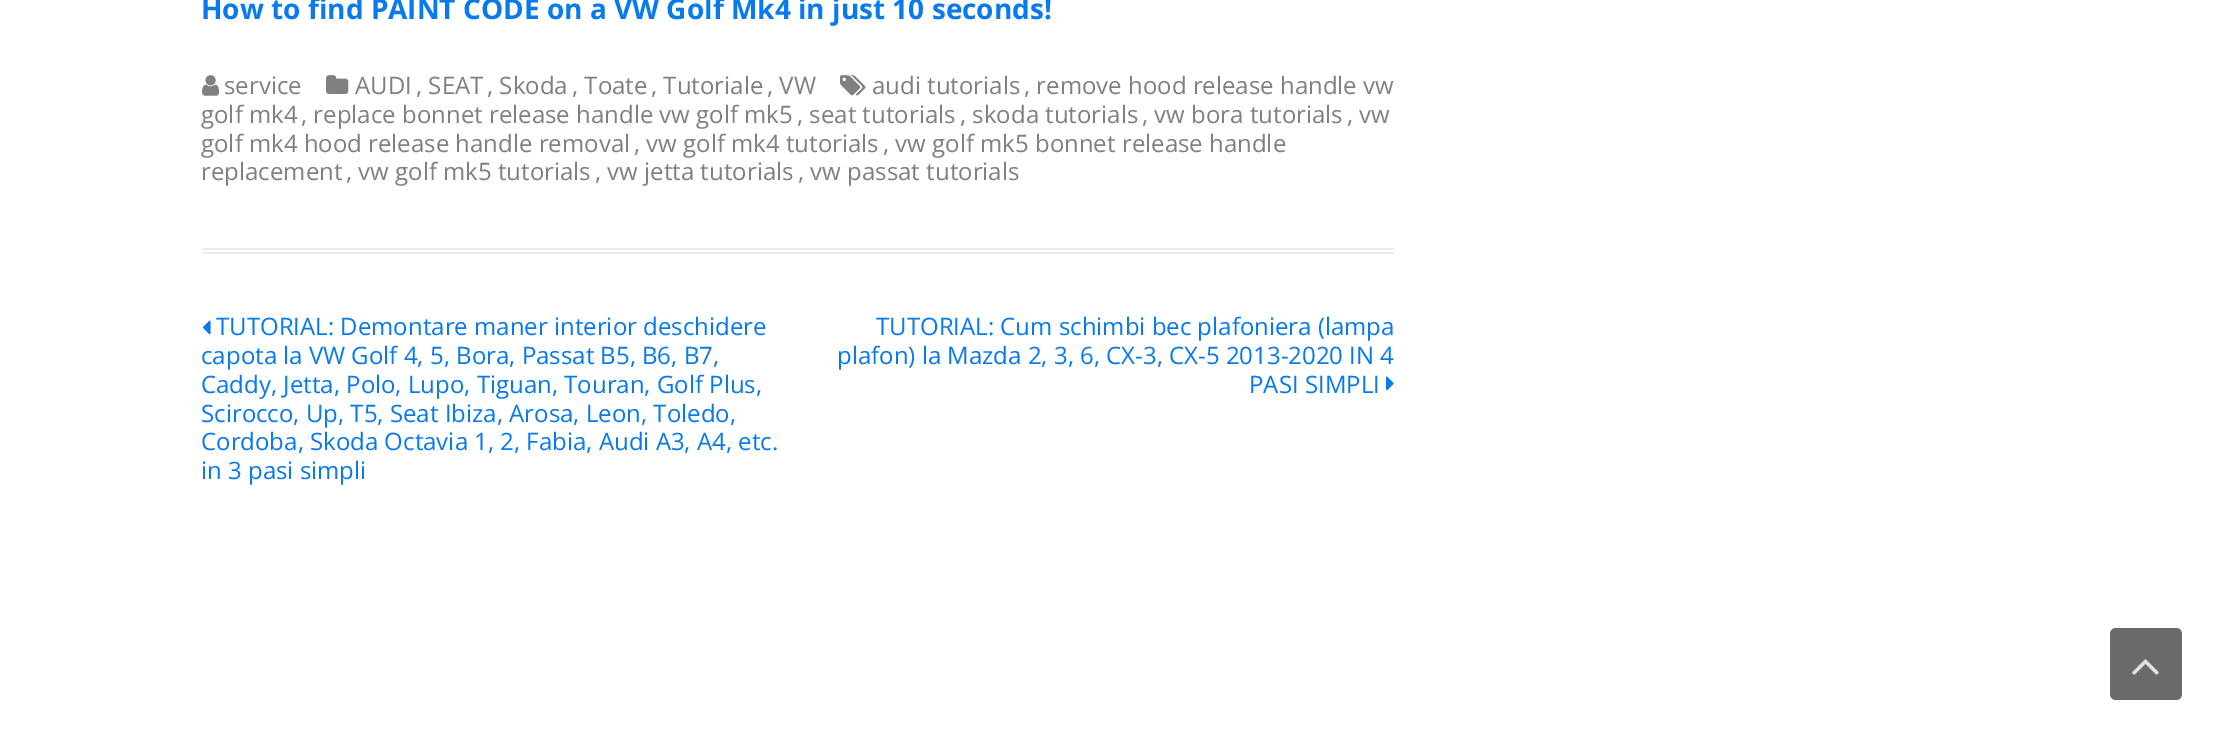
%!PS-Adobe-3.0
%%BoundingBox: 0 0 2222 739
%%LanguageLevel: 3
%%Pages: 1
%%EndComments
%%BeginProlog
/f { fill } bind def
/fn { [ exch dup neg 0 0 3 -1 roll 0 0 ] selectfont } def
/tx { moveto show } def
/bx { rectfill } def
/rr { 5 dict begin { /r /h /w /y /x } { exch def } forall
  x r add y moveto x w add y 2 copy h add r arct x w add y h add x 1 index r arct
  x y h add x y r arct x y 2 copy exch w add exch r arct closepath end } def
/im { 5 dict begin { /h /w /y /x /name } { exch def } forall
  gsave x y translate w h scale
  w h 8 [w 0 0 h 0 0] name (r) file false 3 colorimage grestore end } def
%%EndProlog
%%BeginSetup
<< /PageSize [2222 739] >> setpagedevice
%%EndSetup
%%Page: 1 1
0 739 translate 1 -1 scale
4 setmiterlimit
1 setgray
0 0 2222 739 bx
0.922 0.929 0.929 setrgbcolor
202 248 1192 2 bx
202 252 1192 2 bx
/OpenSans-Bold 28 fn
0.027 0.478 0.929 setrgbcolor
(How to find PAINT CODE on a VW Golf Mk4 in just 10 seconds!) 201 19 tx
(image0.raw) 840 75 26 21 im
/OpenSans-Regular 24 fn
0.502 setgray
(audi tutorials) 872 94 tx
(, remove hood release handle vw) 1024 94 tx
(golf mk4) 201 123 tx
(, replace bonnet release handle vw golf mk5) 301 123 tx
(, seat tutorials) 797 123 tx
(, skoda tutorials) 960 123 tx
(, vw bora tutorials) 1142 123 tx
(, vw) 1347 123 tx
(golf mk4 hood release handle removal) 201 152 tx
(, vw golf mk4 tutorials) 634 152 tx
(, vw golf mk5 bonnet release handle) 883 152 tx
(replacement) 201 180 tx
(, vw golf mk5 tutorials) 346 180 tx
(, vw jetta tutorials) 595 180 tx
(, vw passat tutorials) 798 180 tx
(image1.raw) 202 75 18 21 im
(service) 224 94 tx
(image2.raw) 326 75 23 19 im
(AUDI) 355 94 tx
(, SEAT) 416 94 tx
(, Skoda) 487 94 tx
(, Toate) 572 94 tx
(, Tutoriale) 651 94 tx
(, VW) 767 94 tx
(image3.raw) 202 320 9 15 im
0.027 0.478 0.929 setrgbcolor
(TUTORIAL: Demontare maner interior deschidere) 216 335 tx
(capota la VW Golf 4, 5, Bora, Passat B5, B6, B7,) 201 364 tx
(Caddy, Jetta, Polo, Lupo, Tiguan, Touran, Golf Plus,) 201 393 tx
(Scirocco, Up, T5, Seat Ibiza, Arosa, Leon, Toledo,) 201 422 tx
(Cordoba, Skoda Octavia 1, 2, Fabia, Audi A3, A4, etc.) 201 450 tx
(in 3 pasi simpli) 201 479 tx
(TUTORIAL: Cum schimbi bec plafoniera \(lampa) 876 335 tx
(plafon\) la Mazda 2, 3, 6, CX-3, CX-5 2013-2020 IN 4) 837 364 tx
(PASI SIMPLI) 1249 393 tx
(image4.raw) 1386 376 8 15 im
0.412 0.416 0.416 setrgbcolor
2110 628 72 72 6 rr f
(image5.raw) 2132 659 27 16 im
showpage
%%EOF
